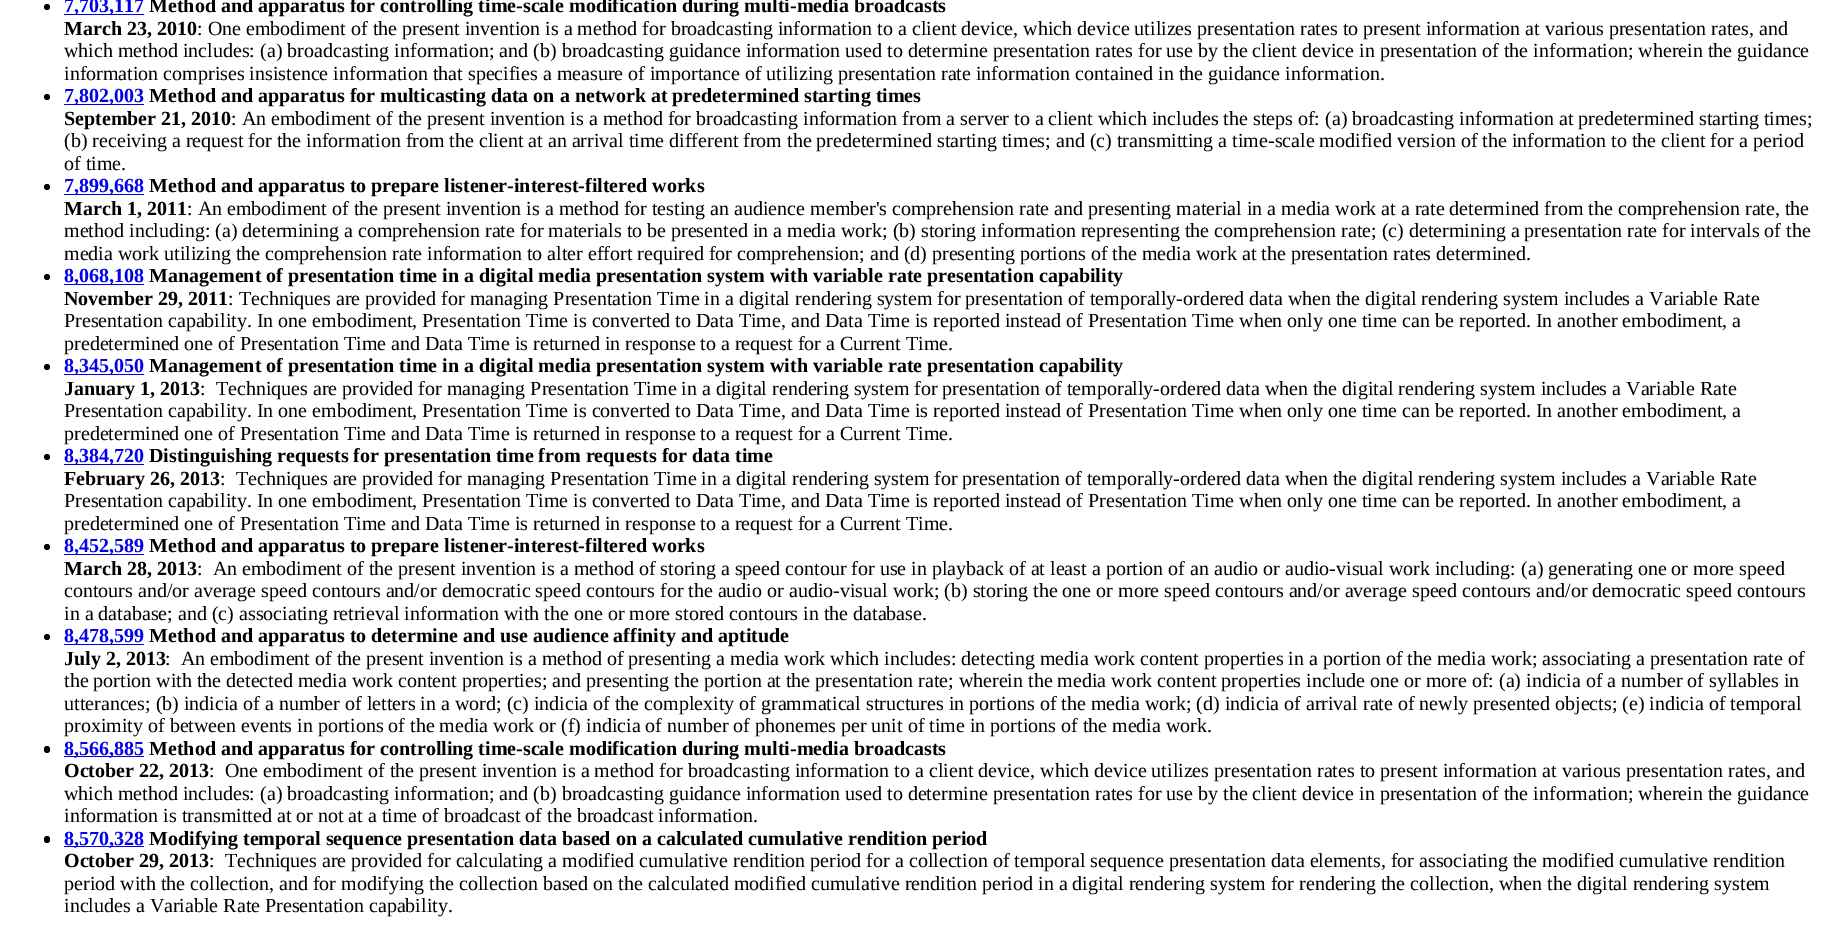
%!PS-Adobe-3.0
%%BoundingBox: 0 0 1831 948
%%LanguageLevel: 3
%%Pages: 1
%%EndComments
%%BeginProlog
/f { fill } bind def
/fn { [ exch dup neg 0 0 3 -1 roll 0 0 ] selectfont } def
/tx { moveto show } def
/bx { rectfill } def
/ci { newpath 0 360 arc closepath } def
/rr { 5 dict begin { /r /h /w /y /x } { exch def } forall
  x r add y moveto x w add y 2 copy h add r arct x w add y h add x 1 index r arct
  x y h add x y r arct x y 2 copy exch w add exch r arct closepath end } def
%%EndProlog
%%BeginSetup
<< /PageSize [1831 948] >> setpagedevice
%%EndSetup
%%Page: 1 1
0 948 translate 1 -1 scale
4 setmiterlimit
1 setgray
0 0 1831 948 bx
0 setgray
47 7 3 ci f
0 0 0.933 setrgbcolor
64 14 80 1 bx
/LiberationSerif-Bold 20 fn
(7,703,117) 64 12 tx
0 setgray
(Method and apparatus for controlling time-scale modification during multi-media broadcasts) 149 12 tx
(March 23, 2010) 64 35 tx
/LiberationSerif-Regular 20 fn
(: One embodiment of the present invention is a method for broadcasting information to a client device, which device utilizes presentation rates to present information at various presentation rates, and) 197 35 tx
(which method includes: \(a\) broadcasting information; and \(b\) broadcasting guidance information used to determine presentation rates for use by the client device in presentation of the information; wherein the guidance) 64 57 tx
(information comprises insistence information that specifies a measure of importance of utilizing presentation rate information contained in the guidance information.) 64 80 tx
47 97 3 ci f
0 0 0.933 setrgbcolor
64 104 80 1 bx
/LiberationSerif-Bold 20 fn
(7,802,003) 64 102 tx
0 setgray
(Method and apparatus for multicasting data on a network at predetermined starting times) 149 102 tx
(September 21, 2010) 64 125 tx
/LiberationSerif-Regular 20 fn
(: An embodiment of the present invention is a method for broadcasting information from a server to a client which includes the steps of: \(a\) broadcasting information at predetermined starting times;) 231 125 tx
(\(b\) receiving a request for the information from the client at an arrival time different from the predetermined starting times; and \(c\) transmitting a time-scale modified version of the information to the client for a period) 64 147 tx
(of time.) 64 170 tx
47 187 3 ci f
0 0 0.933 setrgbcolor
64 194 80 1 bx
/LiberationSerif-Bold 20 fn
(7,899,668) 64 192 tx
0 setgray
(Method and apparatus to prepare listener-interest-filtered works) 149 192 tx
(March 1, 2011) 64 215 tx
/LiberationSerif-Regular 20 fn
(: An embodiment of the present invention is a method for testing an audience member's comprehension rate and presenting material in a media work at a rate determined from the comprehension rate, the) 187 215 tx
(method including: \(a\) determining a comprehension rate for materials to be presented in a media work; \(b\) storing information representing the comprehension rate; \(c\) determining a presentation rate for intervals of the) 64 237 tx
(media work utilizing the comprehension rate information to alter effort required for comprehension; and \(d\) presenting portions of the media work at the presentation rates determined.) 64 260 tx
47 277 3 ci f
0 0 0.933 setrgbcolor
64 284 80 1 bx
/LiberationSerif-Bold 20 fn
(8,068,108) 64 282 tx
0 setgray
(Management of presentation time in a digital media presentation system with variable rate presentation capability) 149 282 tx
(November 29, 2011) 64 305 tx
/LiberationSerif-Regular 20 fn
(: Techniques are provided for managing Presentation Time in a digital rendering system for presentation of temporally-ordered data when the digital rendering system includes a Variable Rate) 228 305 tx
(Presentation capability. In one embodiment, Presentation Time is converted to Data Time, and Data Time is reported instead of Presentation Time when only one time can be reported. In another embodiment, a) 64 327 tx
(predetermined one of Presentation Time and Data Time is returned in response to a request for a Current Time.) 64 350 tx
47 367 3 ci f
0 0 0.933 setrgbcolor
64 374 80 1 bx
/LiberationSerif-Bold 20 fn
(8,345,050) 64 372 tx
0 setgray
(Management of presentation time in a digital media presentation system with variable rate presentation capability) 149 372 tx
(January 1, 2013) 64 395 tx
/LiberationSerif-Regular 20 fn
(:  Techniques are provided for managing Presentation Time in a digital rendering system for presentation of temporally-ordered data when the digital rendering system includes a Variable Rate) 200 395 tx
(Presentation capability. In one embodiment, Presentation Time is converted to Data Time, and Data Time is reported instead of Presentation Time when only one time can be reported. In another embodiment, a) 64 417 tx
(predetermined one of Presentation Time and Data Time is returned in response to a request for a Current Time.) 64 440 tx
47 457 3 ci f
0 0 0.933 setrgbcolor
64 464 80 1 bx
/LiberationSerif-Bold 20 fn
(8,384,720) 64 462 tx
0 setgray
(Distinguishing requests for presentation time from requests for data time) 149 462 tx
(February 26, 2013) 64 485 tx
/LiberationSerif-Regular 20 fn
(:  Techniques are provided for managing Presentation Time in a digital rendering system for presentation of temporally-ordered data when the digital rendering system includes a Variable Rate) 220 485 tx
(Presentation capability. In one embodiment, Presentation Time is converted to Data Time, and Data Time is reported instead of Presentation Time when only one time can be reported. In another embodiment, a) 64 507 tx
(predetermined one of Presentation Time and Data Time is returned in response to a request for a Current Time.) 64 530 tx
47 547 3 ci f
0 0 0.933 setrgbcolor
64 554 80 1 bx
/LiberationSerif-Bold 20 fn
(8,452,589) 64 552 tx
0 setgray
(Method and apparatus to prepare listener-interest-filtered works) 149 552 tx
(March 28, 2013) 64 575 tx
/LiberationSerif-Regular 20 fn
(:  An embodiment of the present invention is a method of storing a speed contour for use in playback of at least a portion of an audio or audio-visual work including: \(a\) generating one or more speed) 197 575 tx
(contours and/or average speed contours and/or democratic speed contours for the audio or audio-visual work; \(b\) storing the one or more speed contours and/or average speed contours and/or democratic speed contours) 64 597 tx
(in a database; and \(c\) associating retrieval information with the one or more stored contours in the database.) 64 620 tx
47 637 3 ci f
0 0 0.933 setrgbcolor
64 644 80 1 bx
/LiberationSerif-Bold 20 fn
(8,478,599) 64 642 tx
0 setgray
(Method and apparatus to determine and use audience affinity and aptitude) 149 642 tx
(July 2, 2013) 64 665 tx
/LiberationSerif-Regular 20 fn
(:  An embodiment of the present invention is a method of presenting a media work which includes: detecting media work content properties in a portion of the media work; associating a presentation rate of) 165 665 tx
(the portion with the detected media work content properties; and presenting the portion at the presentation rate; wherein the media work content properties include one or more of: \(a\) indicia of a number of syllables in) 64 687 tx
(utterances; \(b\) indicia of a number of letters in a word; \(c\) indicia of the complexity of grammatical structures in portions of the media work; \(d\) indicia of arrival rate of newly presented objects; \(e\) indicia of temporal) 64 710 tx
(proximity of between events in portions of the media work or \(f\) indicia of number of phonemes per unit of time in portions of the media work.) 64 732 tx
44 746 6 7 3 rr f
0 0 0.933 setrgbcolor
64 756 80 1 bx
/LiberationSerif-Bold 20 fn
(8,566,885) 64 755 tx
0 setgray
(Method and apparatus for controlling time-scale modification during multi-media broadcasts) 149 755 tx
(October 22, 2013) 64 777 tx
/LiberationSerif-Regular 20 fn
(:  One embodiment of the present invention is a method for broadcasting information to a client device, which device utilizes presentation rates to present information at various presentation rates, and) 209 777 tx
(which method includes: \(a\) broadcasting information; and \(b\) broadcasting guidance information used to determine presentation rates for use by the client device in presentation of the information; wherein the guidance) 64 800 tx
(information is transmitted at or not at a time of broadcast of the broadcast information.) 64 822 tx
44 836 6 7 3 rr f
0 0 0.933 setrgbcolor
64 846 80 1 bx
/LiberationSerif-Bold 20 fn
(8,570,328) 64 845 tx
0 setgray
(Modifying temporal sequence presentation data based on a calculated cumulative rendition period) 149 845 tx
(October 29, 2013) 64 867 tx
/LiberationSerif-Regular 20 fn
(:  Techniques are provided for calculating a modified cumulative rendition period for a collection of temporal sequence presentation data elements, for associating the modified cumulative rendition) 209 867 tx
(period with the collection, and for modifying the collection based on the calculated modified cumulative rendition period in a digital rendering system for rendering the collection, when the digital rendering system) 64 890 tx
(includes a Variable Rate Presentation capability.) 64 912 tx
showpage
%%EOF
